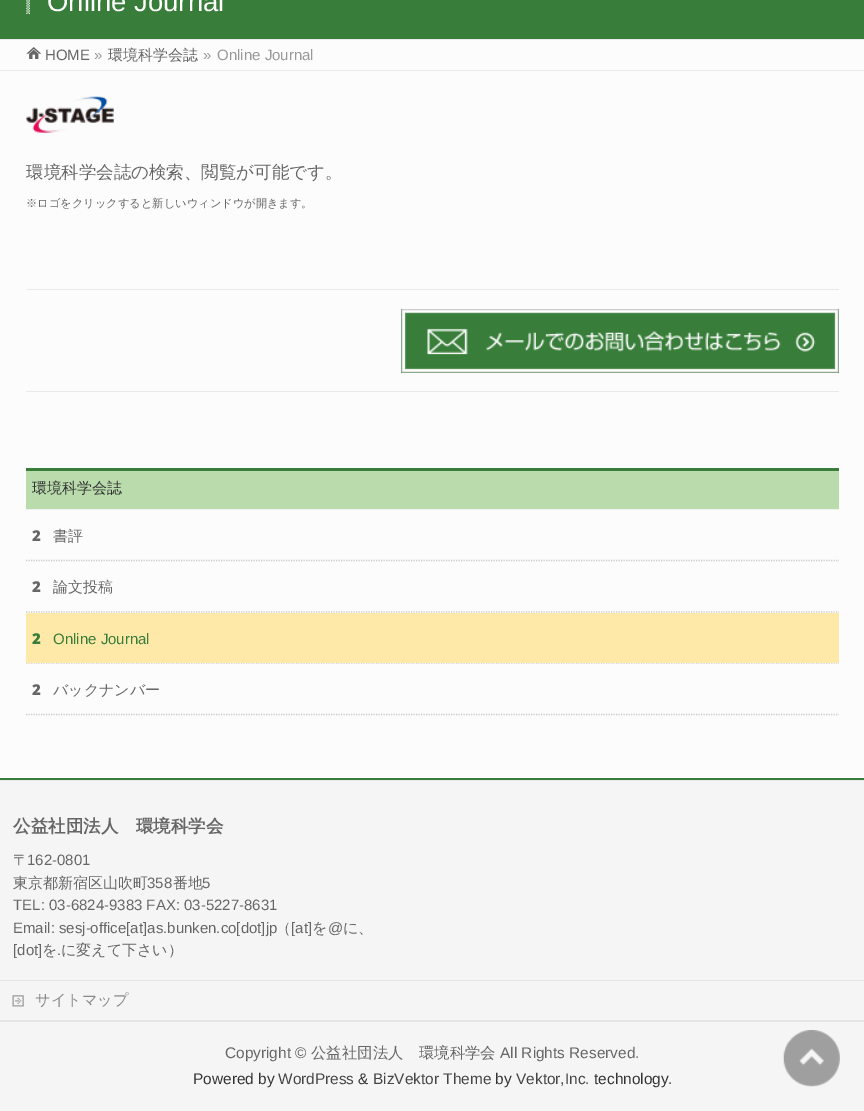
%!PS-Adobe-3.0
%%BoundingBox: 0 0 864 1111
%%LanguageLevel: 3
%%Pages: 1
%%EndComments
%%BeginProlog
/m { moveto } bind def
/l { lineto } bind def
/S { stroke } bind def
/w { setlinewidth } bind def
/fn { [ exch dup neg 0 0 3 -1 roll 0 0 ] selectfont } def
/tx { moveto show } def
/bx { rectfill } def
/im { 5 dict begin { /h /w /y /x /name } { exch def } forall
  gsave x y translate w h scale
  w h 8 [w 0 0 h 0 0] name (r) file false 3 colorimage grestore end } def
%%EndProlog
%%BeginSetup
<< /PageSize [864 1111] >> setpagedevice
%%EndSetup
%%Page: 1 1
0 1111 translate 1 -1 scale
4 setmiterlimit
0.988 setgray
0 0 864 1111 bx
0.22 0.49 0.224 setrgbcolor
0 0 864 39 bx
0.914 setgray
0 39 864 1 bx
(image0.raw) 26 0 4 14 im
/LiberationSans-Regular 27.5 fn
1 setgray
(Online Journal) 47 11 tx
(image1.raw) 26 47 16 12 im
/LiberationSans-Regular 15 fn
0.4 setgray
(HOME) 45 60 tx
0.6 setgray
(») 94 60 tx
/WenQuanYiZenHei-Medium 15 fn
0.4 setgray
(環境科学会誌) 108 60 tx
/LiberationSans-Regular 15 fn
0.6 setgray
(») 203 60 tx
(Online Journal) 217 60 tx
0.914 setgray
0 70 864 1 bx
(image2.raw) 26 96 88 37 im
/WenQuanYiZenHei-Medium 17.5 fn
0.4 setgray
(環境科学会誌の検索、閲覧が可能です。) 26 178 tx
/WenQuanYiZenHei-Medium 11.25 fn
(※ロゴをクリックすると新しいウィンドウが開きます。) 26 207 tx
0.914 setgray
26 289 813 1 bx
26 391 813 1 bx
0.22 0.49 0.224 setrgbcolor
401 309 438 64 bx
(image3.raw) 401 309 438 64 im
0.729 0.863 0.678 setrgbcolor
26 471 813 38 bx
0.22 0.49 0.224 setrgbcolor
26 468 813 3 bx
0.937 setgray
26 509 813 1 bx
/WenQuanYiZenHei-Medium 15 fn
0.2 setgray
(環境科学会誌) 32 493 tx
0.8 setgray
1.2 w
[1.25 1.25] 0 setdash
26 560.5 m 839 560.5 l S
/NotoSans-Black 15 fn
0.4 setgray
(2) 32 541 tx
/WenQuanYiZenHei-Medium 15 fn
(書評) 53 541 tx
0.8 setgray
26 612 m 839 612 l S
/NotoSans-Black 15 fn
0.4 setgray
(2) 32 592 tx
/WenQuanYiZenHei-Medium 15 fn
(論文投稿) 53 592 tx
0.8 setgray
26 663 m 839 663 l S
1 0.914 0.663 setrgbcolor
26 613 813 50 bx
/NotoSans-Black 15 fn
0.22 0.49 0.224 setrgbcolor
(2) 32 644 tx
/LiberationSans-Regular 15 fn
(Online Journal) 53 644 tx
0.8 setgray
26 714.5 m 839 714.5 l S
/NotoSans-Black 15 fn
0.4 setgray
(2) 32 695 tx
/WenQuanYiZenHei-Medium 15 fn
(バックナンバー) 53 695 tx
0.22 0.49 0.224 setrgbcolor
0 778 864 2 bx
0.914 setgray
0 780 864 1 bx
0.961 setgray
0 781 864 239 bx
/WenQuanYiZenHei-Bold 17.5 fn
0.4 setgray
(公益社団法人　環境科学会) 13 832 tx
/WenQuanYiZenHei-Medium 15 fn
(〒) 13 865 tx
/LiberationSans-Regular 15 fn
(162-0801) 27 865 tx
/WenQuanYiZenHei-Medium 15 fn
(東京都新宿区山吹町) 13 888 tx
/LiberationSans-Regular 15 fn
(358) 147 888 tx
/WenQuanYiZenHei-Medium 15 fn
(番地) 173 888 tx
/LiberationSans-Regular 15 fn
(5) 202 888 tx
(TEL: 03-6824-9383 FAX: 03-5227-8631) 13 910 tx
(Email: sesj-office[at]as.bunken.co[dot]jp) 13 933 tx
/WenQuanYiZenHei-Medium 15 fn
(（) 276 933 tx
/LiberationSans-Regular 15 fn
([at]) 291 933 tx
/WenQuanYiZenHei-Medium 15 fn
(を) 312 933 tx
/LiberationSans-Regular 15 fn
(@) 328 933 tx
/WenQuanYiZenHei-Medium 15 fn
(に、) 343 933 tx
/LiberationSans-Regular 15 fn
([dot]) 13 955 tx
/WenQuanYiZenHei-Medium 15 fn
(を) 42 955 tx
/LiberationSans-Regular 15 fn
(.) 57 955 tx
/WenQuanYiZenHei-Medium 15 fn
(に変えて下さい）) 61 955 tx
0.898 setgray
0 980 864 1 bx
(image4.raw) 12 995 12 12 im
/WenQuanYiZenHei-Medium 15.25 fn
0.533 setgray
(サイトマップ) 35 1005 tx
0.961 setgray
0 1022 864 89 bx
0.898 setgray
0 1020 864 2 bx
/LiberationSans-Regular 15.4 fn
0.4 setgray
(Copyright ©) 225 1058 tx
/WenQuanYiZenHei-Medium 15.4 fn
(公益社団法人　環境科学会) 311 1058 tx
/LiberationSans-Regular 15.4 fn
(All Rights Reserved.) 500 1058 tx
0.2 setgray
(Powered by) 193 1084 tx
0.271 setgray
(WordPress) 278 1084 tx
0.2 setgray
(&) 358 1084 tx
0.271 setgray
(BizVektor Theme) 373 1084 tx
0.2 setgray
(by) 495 1084 tx
0.271 setgray
(Vektor,Inc.) 516 1084 tx
0.2 setgray
(technology.) 594 1084 tx
(image5.raw) 783 1030 57 57 im
showpage
%%EOF
